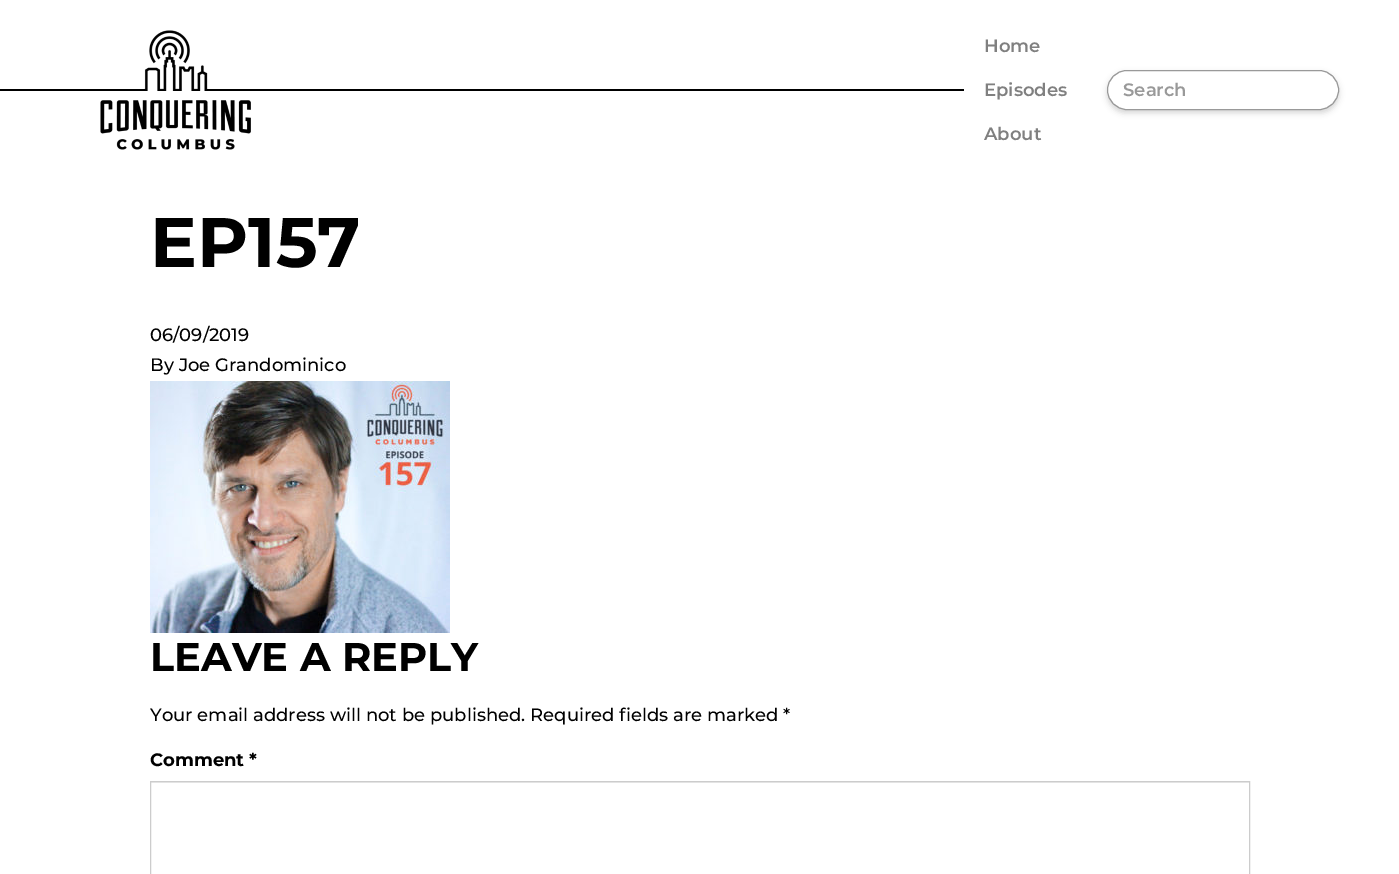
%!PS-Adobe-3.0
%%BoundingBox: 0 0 1399 874
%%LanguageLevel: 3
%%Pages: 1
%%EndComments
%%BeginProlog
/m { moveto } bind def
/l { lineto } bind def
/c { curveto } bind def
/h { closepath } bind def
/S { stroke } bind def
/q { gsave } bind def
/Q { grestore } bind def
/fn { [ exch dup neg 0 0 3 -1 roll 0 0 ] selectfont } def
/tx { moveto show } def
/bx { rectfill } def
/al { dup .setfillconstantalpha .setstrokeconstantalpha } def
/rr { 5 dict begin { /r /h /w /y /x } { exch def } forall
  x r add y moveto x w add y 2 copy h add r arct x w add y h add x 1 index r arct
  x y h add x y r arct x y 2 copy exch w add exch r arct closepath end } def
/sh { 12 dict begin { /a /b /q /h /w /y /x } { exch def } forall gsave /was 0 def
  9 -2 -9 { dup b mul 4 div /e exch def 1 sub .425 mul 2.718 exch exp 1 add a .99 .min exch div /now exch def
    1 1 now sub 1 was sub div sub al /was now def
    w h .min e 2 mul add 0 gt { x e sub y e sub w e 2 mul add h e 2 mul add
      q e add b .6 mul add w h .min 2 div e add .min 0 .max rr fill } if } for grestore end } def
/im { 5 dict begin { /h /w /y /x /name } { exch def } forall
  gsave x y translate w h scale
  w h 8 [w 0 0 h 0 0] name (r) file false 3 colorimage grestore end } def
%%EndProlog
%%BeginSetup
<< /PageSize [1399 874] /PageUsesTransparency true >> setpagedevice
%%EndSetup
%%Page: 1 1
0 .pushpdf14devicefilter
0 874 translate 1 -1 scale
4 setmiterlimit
1 setgray
0 0 1399 874 bx
0 setgray
0 89 100 2 bx
(image0.raw) 100 30 151 120 im
251 89 713 2 bx
/Montserrat-SemiBold 18 fn
0.502 setgray
(Home) 984 52 tx
(Episodes) 984 96 tx
(About) 984 140 tx
q
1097 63 m 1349 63 l 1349 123 l 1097 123 l h 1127 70 m 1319 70 l 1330 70 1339 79 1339 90 c 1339 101 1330 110 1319 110 c 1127 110 l 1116 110 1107 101 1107 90 c 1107 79 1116 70 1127 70 c h eoclip newpath
0 setgray
1107 73 232 40 20 3 0.16 sh
Q
0.6 setgray
1107.5 70.5 231 39 19.5 rr S
(Search) 1123 96 tx
/Montserrat-Bold 70 fn
0 setgray
(EP157) 150 267 tx
/Montserrat-Medium 18 fn
(06/09/2019) 150 341 tx
(By Joe Grandominico) 150 371 tx
(image1.raw) 150 381 300 252 im
/Montserrat-Bold 40 fn
(LEAVE A REPLY) 150 671 tx
/Montserrat-Medium 18 fn
(Your email address will not be published. Required fields are marked *) 150 721 tx
/Montserrat-Bold 18 fn
(Comment *) 150 766 tx
0.925 setgray
151 782 1098 1 bx
0.8 setgray
150.5 781.5 1099 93 rectstroke
.poppdf14devicefilter showpage
%%EOF
